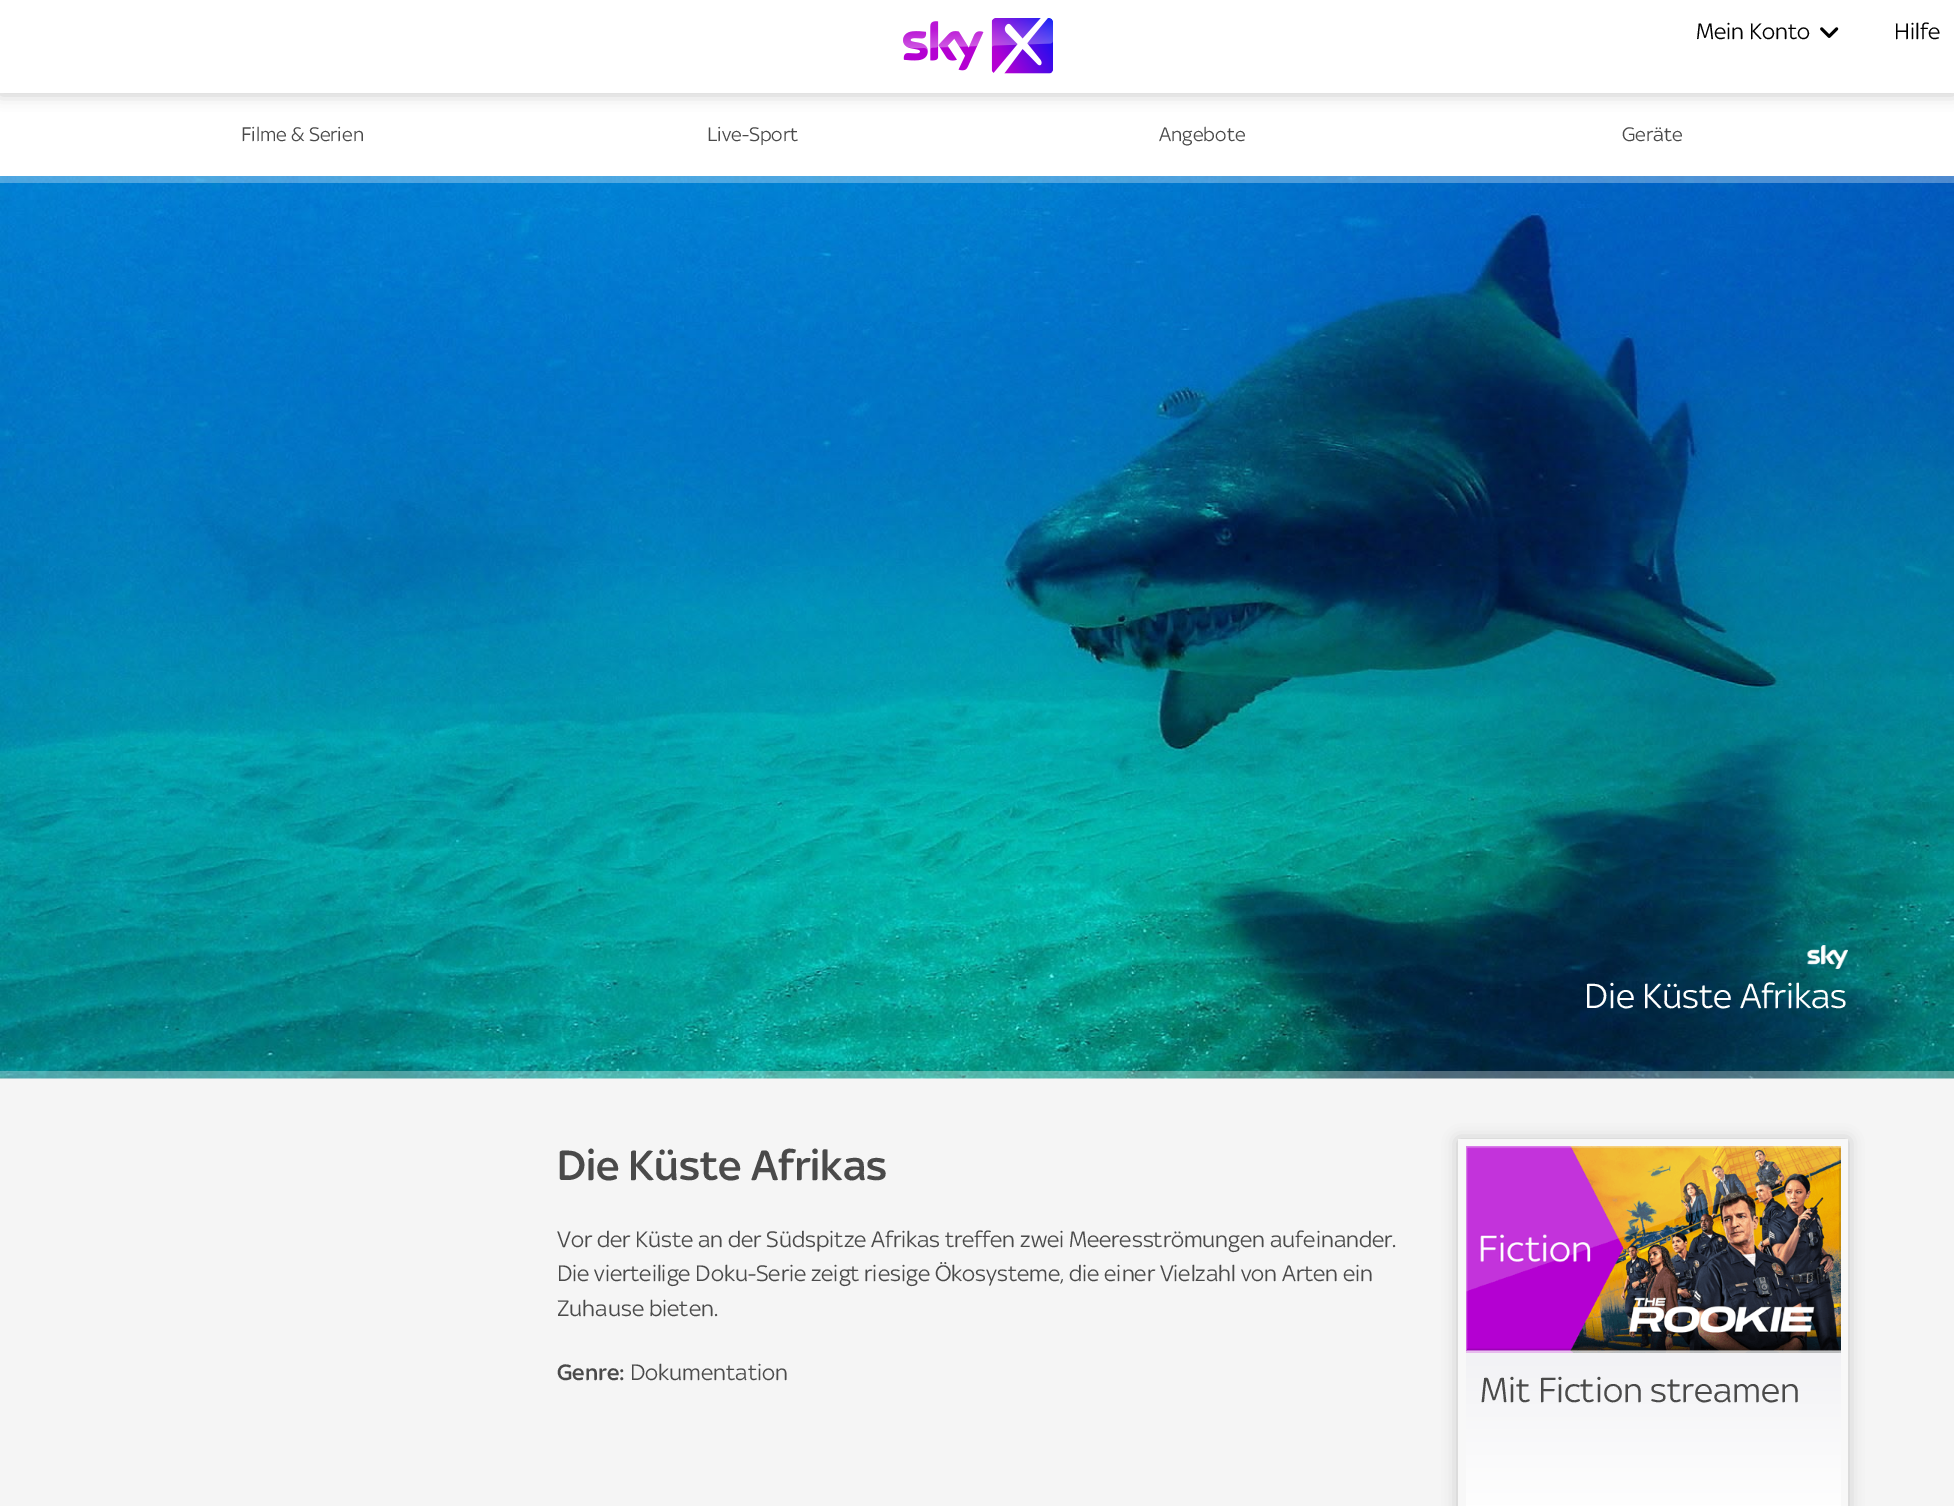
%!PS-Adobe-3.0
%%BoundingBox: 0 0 1954 1506
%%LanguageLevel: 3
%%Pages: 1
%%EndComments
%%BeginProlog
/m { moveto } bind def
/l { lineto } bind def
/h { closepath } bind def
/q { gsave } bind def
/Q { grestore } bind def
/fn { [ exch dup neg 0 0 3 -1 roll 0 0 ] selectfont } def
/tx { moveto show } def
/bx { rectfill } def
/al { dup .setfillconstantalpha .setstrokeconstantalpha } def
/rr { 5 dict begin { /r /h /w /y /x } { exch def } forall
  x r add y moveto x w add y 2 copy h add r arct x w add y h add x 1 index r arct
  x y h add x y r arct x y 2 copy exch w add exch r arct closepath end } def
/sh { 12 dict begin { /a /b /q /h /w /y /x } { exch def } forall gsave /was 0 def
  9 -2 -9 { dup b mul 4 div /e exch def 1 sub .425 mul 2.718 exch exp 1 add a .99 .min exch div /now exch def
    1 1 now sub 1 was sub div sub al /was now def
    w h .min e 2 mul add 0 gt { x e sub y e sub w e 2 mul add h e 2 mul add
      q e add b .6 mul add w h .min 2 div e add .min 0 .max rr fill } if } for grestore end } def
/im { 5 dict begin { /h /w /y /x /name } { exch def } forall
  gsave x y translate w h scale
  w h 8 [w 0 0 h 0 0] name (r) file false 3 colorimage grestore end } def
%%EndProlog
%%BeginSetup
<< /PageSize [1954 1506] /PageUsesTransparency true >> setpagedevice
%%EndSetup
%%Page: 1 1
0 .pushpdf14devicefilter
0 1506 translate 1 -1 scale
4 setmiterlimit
0.961 setgray
0 0 1954 1506 bx
1 setgray
0 93 1954 83 bx
0 setgray
0 2 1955 93 0 7.5 0.2 sh
1 setgray
0 0 1954 93 bx
(image0.raw) 903 18 150 56 im
/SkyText-Regular 24 fn
0 setgray
(Mein Konto) 1696 39 tx
(image1.raw) 1820 27 19 11 im
(Hilfe) 1894 39 tx
/SkyText-Regular 21 fn
0.29 setgray
(Filme & Serien) 241 141 tx
(Live-Sport) 707 141 tx
(Angebote) 1159 141 tx
(Geräte) 1622 141 tx
(image2.raw) 0 176 1954 903 im
0.3 al
1 setgray
0 176 1954 7 bx
1 al
(image3.raw) 1807 945 41 24 im
/SkyText-Regular 37.25 fn
(Die Küste Afrikas) 1584 1008 tx
0.3 al
0 1071 1954 8 bx
/SkyText-Medium 45.25 fn
1 al
0.29 setgray
(Die Küste Afrikas) 557 1180 tx
/SkyText-Regular 24 fn
(Vor der Küste an der Südspitze Afrikas treffen zwei Meeresströmungen aufeinander.) 557 1247 tx
(Die vierteilige Doku-Serie zeigt riesige Ökosysteme, die einer Vielzahl von Arten ein) 557 1281 tx
(Zuhause bieten.) 557 1316 tx
/SkyText-Medium 24 fn
(Genre:) 557 1380 tx
/SkyText-Regular 24 fn
(Dokumentation) 630 1380 tx
0 setgray
1458 1140 390 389 0 7.5 0.2 sh
0.973 setgray
1458 1139 390 367 bx
(image4.raw) 1466 1146 375 207 im
q 1466 1353 m 1841 1353 l 1841 1506 l 1466 1506 l h clip newpath
<< /ShadingType 2 /ColorSpace /DeviceRGB /Coords [1653 1353 1653 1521] /Extend [true true] /Function << /FunctionType 2 /Domain [0 1] /C0 [0.949 0.949 0.961] /C1 [1 1 1] /N 1 >> >> shfill Q
/SkyText-Regular 37.25 fn
0.29 setgray
(Mit Fiction streamen) 1480 1402 tx
.poppdf14devicefilter showpage
%%EOF
